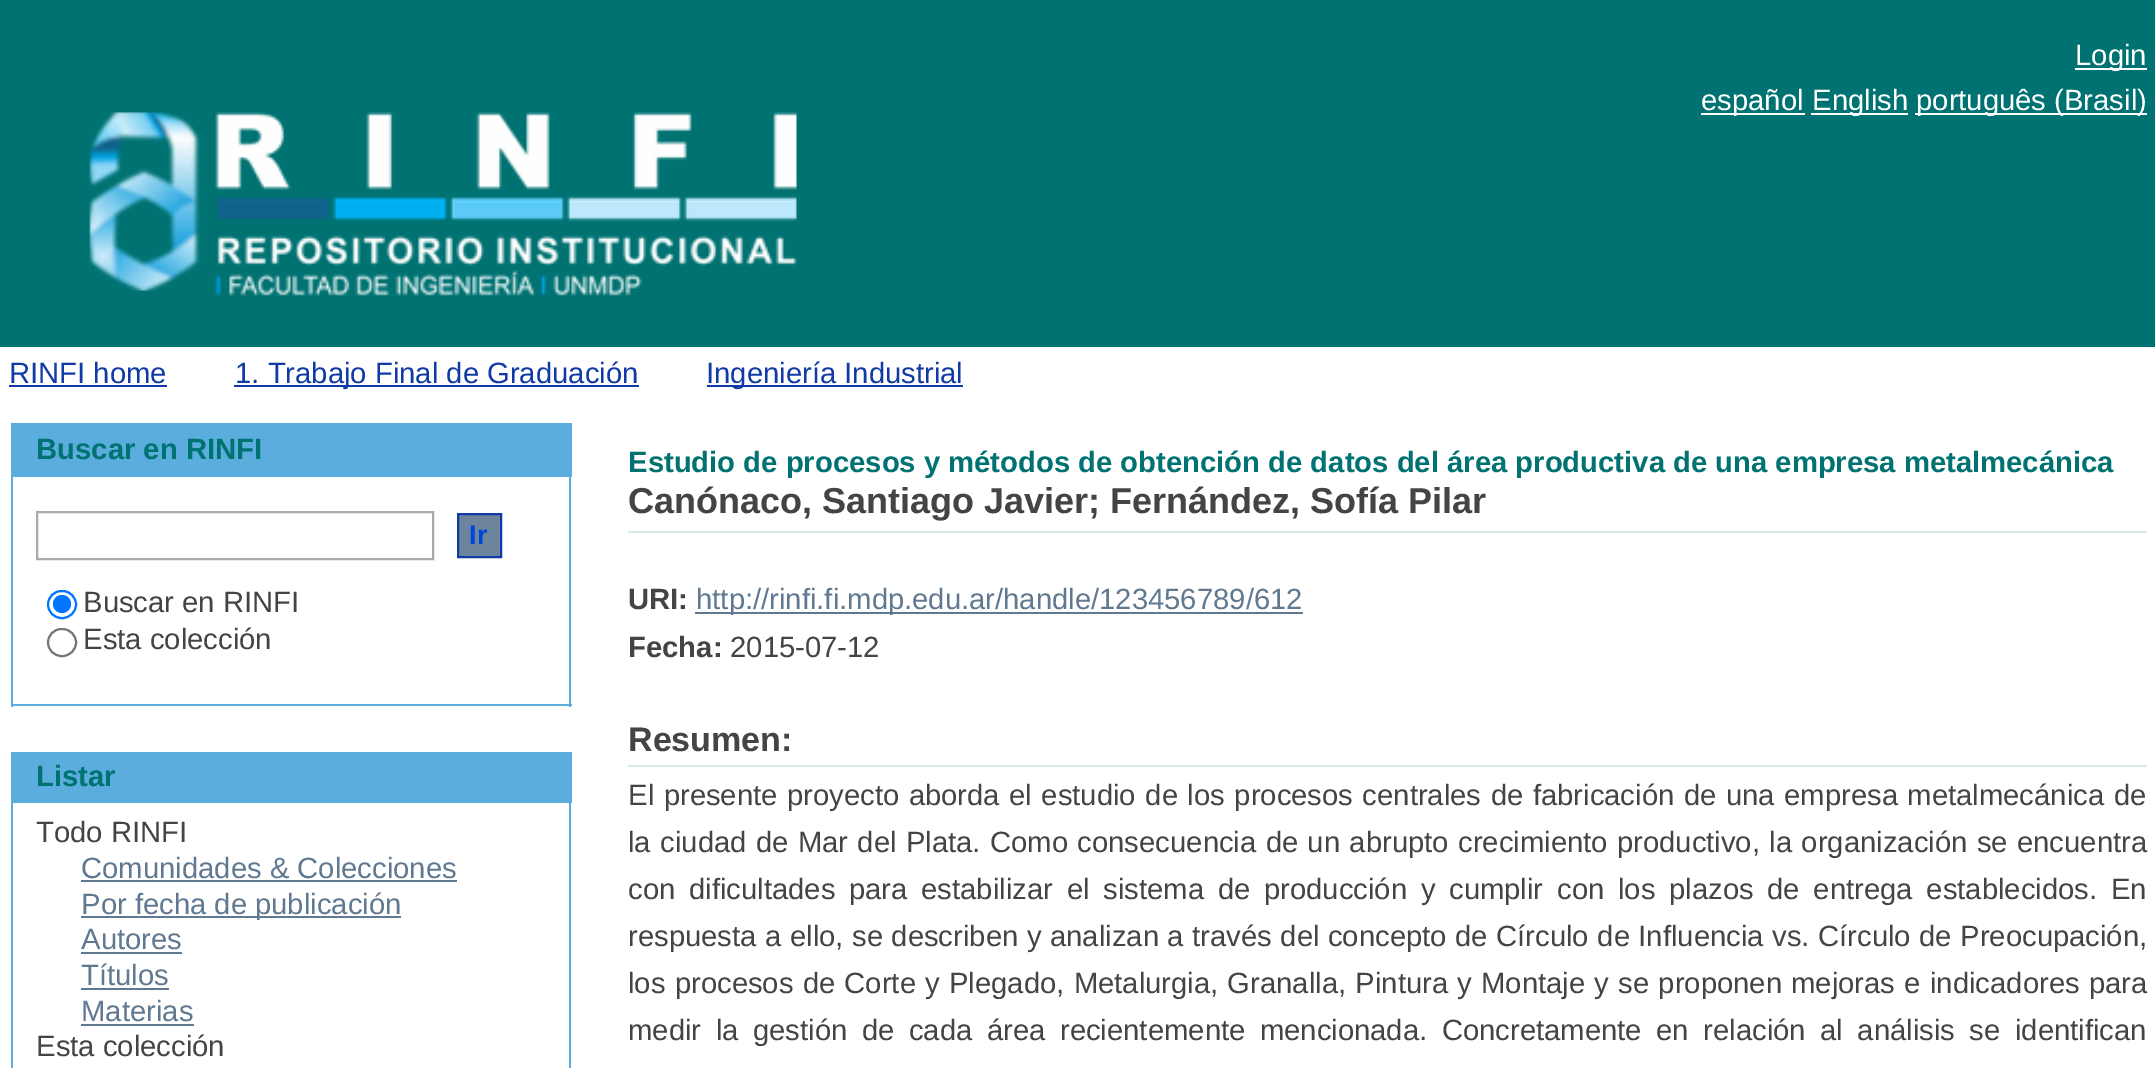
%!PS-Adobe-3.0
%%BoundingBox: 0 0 2155 1068
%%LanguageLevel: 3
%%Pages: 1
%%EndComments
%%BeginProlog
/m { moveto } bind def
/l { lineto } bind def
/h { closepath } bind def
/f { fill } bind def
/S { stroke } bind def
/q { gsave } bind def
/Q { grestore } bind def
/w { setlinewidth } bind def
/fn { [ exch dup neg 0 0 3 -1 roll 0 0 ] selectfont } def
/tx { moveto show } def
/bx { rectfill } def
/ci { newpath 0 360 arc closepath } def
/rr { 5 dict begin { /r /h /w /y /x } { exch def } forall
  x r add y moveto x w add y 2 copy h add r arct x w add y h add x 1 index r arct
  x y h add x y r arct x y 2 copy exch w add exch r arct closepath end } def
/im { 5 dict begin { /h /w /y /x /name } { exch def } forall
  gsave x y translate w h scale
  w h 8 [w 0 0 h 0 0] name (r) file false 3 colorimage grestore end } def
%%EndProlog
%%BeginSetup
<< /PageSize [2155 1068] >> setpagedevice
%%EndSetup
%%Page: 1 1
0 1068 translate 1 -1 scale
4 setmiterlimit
1 setgray
0 0 2155 1068 bx
0 0.447 0.447 setrgbcolor
0 0 2155 347 bx
1 setgray
2075 68 72 2 bx
/LiberationSans-Regular 29.25 fn
(Login) 2075 65 tx
1701 113 104 2 bx
(español) 1701 110 tx
1811 113 97 2 bx
(English) 1812 110 tx
1915 113 232 2 bx
(português \(Brasil\)) 1916 110 tx
(image0.raw) 89 112 708 184 im
0.063 0.227 0.651 setrgbcolor
(RINFI home) 9 383 tx
9 385 158 2 bx
234 385 405 2 bx
(1. Trabajo Final de Graduación) 235 383 tx
707 385 256 2 bx
(Ingeniería Industrial) 706 383 tx
0.353 0.678 0.867 setrgbcolor
11 423 561 54 bx
/LiberationSans-Bold 29.25 fn
0 0.447 0.447 setrgbcolor
(Buscar en RINFI) 36 459 tx
0.353 0.678 0.867 setrgbcolor
569 477 2 230 bx
11 704 561 2 bx
11 477 2 230 bx
0.667 setgray
2 w
37 512 396 47 rectstroke
0.427 0.522 0.612 setrgbcolor
458 514 m 501 514 l 501 557 l 458 557 l h q f Q
0.063 0.227 0.651 setrgbcolor
S
/LiberationSans-Bold 27 fn
0 0.271 0.859 setrgbcolor
(Ir) 469 544 tx
0 0.459 1 setrgbcolor
48 591 28 27 13.5 rr S
62 604 9 ci f
/LiberationSans-Regular 29.25 fn
0.267 setgray
(Buscar en RINFI) 83 612 tx
0.463 setgray
48 629 28 27 13.5 rr S
0.267 setgray
(Esta colección) 83 649 tx
0.353 0.678 0.867 setrgbcolor
11 752 561 51 bx
/LiberationSans-Bold 29.25 fn
0 0.447 0.447 setrgbcolor
(Listar) 36 786 tx
0.353 0.678 0.867 setrgbcolor
569 803 2 265 bx
11 803 2 265 bx
/LiberationSans-Regular 29.25 fn
0.267 setgray
(Todo RINFI) 36 842 tx
0.376 0.471 0.565 setrgbcolor
(Comunidades & Colecciones) 81 878 tx
81 880 376 2 bx
81 916 320 2 bx
(Por fecha de publicación) 81 914 tx
(Autores) 81 949 tx
81 952 101 2 bx
(Títulos) 81 985 tx
81 988 88 2 bx
(Materias) 81 1021 tx
81 1024 113 2 bx
0.267 setgray
(Esta colección) 36 1056 tx
/LiberationSans-Bold 29.25 fn
0 0.447 0.447 setrgbcolor
(Estudio de procesos y métodos de obtención de datos del área productiva de una empresa metalmecánica) 628 472 tx
0.847 0.91 0.922 setrgbcolor
628 531 1519 2 bx
/LiberationSans-Bold 36 fn
0.267 setgray
(Canónaco, Santiago Javier; Fernández, Sofía Pilar) 628 513 tx
/LiberationSans-Bold 29.25 fn
(URI:) 628 609 tx
0.376 0.471 0.565 setrgbcolor
695 612 608 2 bx
/LiberationSans-Regular 29.25 fn
(http://rinfi.fi.mdp.edu.ar/handle/123456789/612) 696 609 tx
/LiberationSans-Bold 29.25 fn
0.267 setgray
(Fecha:) 628 657 tx
/LiberationSans-Regular 29.25 fn
(2015-07-12) 730 657 tx
0.847 0.91 0.922 setrgbcolor
628 765 1519 2 bx
/LiberationSans-Bold 34 fn
0.267 setgray
(Resumen:) 628 751 tx
/LiberationSans-Regular 29.25 fn
628 805 m 1.4 0 32 (El presente proyecto aborda el estudio de los procesos centrales de fabricación de una empresa metalmecánica de) widthshow
628 852 m 1.25 0 32 (la ciudad de Mar del Plata. Como consecuencia de un abrupto crecimiento productivo, la organización se encuentra) widthshow
628 899 m 5.6 0 32 (con dificultades para estabilizar el sistema de producción y cumplir con los plazos de entrega establecidos. En) widthshow
628 946 m 0.4 0 32 (respuesta a ello, se describen y analizan a través del concepto de Círculo de Influencia vs. Círculo de Preocupación,) widthshow
628 993 m 1.1 0 32 (los procesos de Corte y Plegado, Metalurgia, Granalla, Pintura y Montaje y se proponen mejoras e indicadores para) widthshow
628 1040 m 6.4 0 32 (medir la gestión de cada área recientemente mencionada. Concretamente en relación al análisis se identifican) widthshow
showpage
%%EOF
